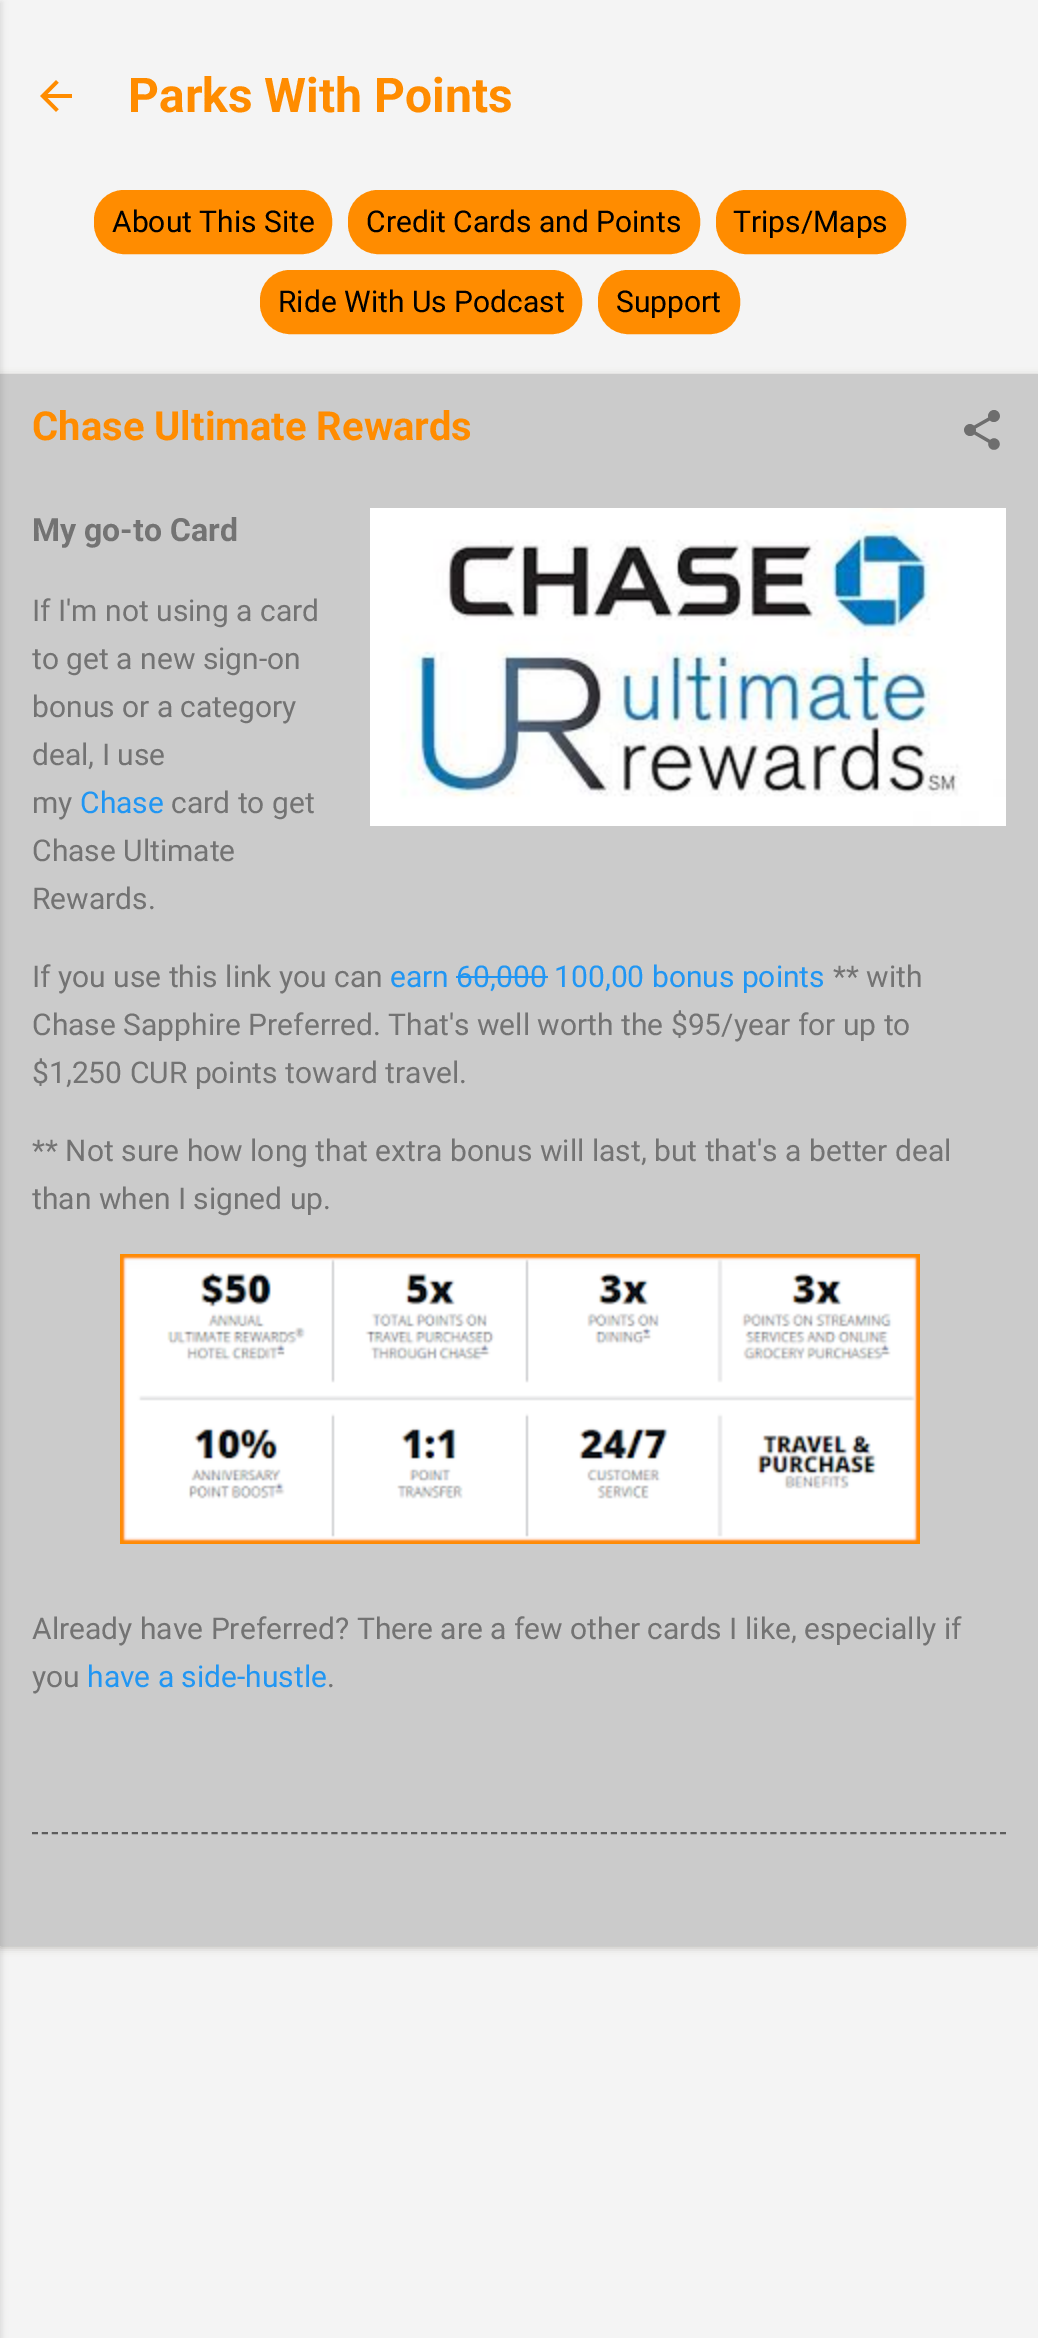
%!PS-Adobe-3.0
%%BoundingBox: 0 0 1038 2338
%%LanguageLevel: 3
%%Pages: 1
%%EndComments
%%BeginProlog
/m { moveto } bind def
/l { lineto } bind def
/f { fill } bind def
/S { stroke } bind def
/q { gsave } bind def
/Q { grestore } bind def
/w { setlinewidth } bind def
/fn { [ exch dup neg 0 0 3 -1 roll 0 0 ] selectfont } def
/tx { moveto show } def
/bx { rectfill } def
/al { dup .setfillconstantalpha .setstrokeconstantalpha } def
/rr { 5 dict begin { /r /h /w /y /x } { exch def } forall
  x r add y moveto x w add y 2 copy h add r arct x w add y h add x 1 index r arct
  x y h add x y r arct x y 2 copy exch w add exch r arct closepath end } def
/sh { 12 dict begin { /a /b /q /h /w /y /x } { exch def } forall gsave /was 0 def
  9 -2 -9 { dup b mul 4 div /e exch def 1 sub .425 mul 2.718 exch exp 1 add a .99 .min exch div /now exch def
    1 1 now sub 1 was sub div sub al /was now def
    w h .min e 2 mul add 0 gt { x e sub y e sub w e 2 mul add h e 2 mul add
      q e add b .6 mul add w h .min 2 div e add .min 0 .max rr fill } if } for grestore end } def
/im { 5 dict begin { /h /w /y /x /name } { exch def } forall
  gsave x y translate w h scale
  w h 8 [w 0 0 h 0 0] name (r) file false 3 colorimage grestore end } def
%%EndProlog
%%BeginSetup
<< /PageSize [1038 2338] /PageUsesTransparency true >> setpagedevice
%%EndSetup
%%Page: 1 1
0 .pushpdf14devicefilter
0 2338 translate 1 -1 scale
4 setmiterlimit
0.957 setgray
0 0 1038 2338 bx
0.227 0.22 0.204 setrgbcolor
0 376 1038 1572 0 4 0.3 sh
0.796 setgray
0 374 1038 1572 bx
0 setgray
-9 2 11 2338 0 3 0.1 sh
(image0.raw) 40 80 32 32 im
/Roboto-Bold 48 fn
1 0.549 0 setrgbcolor
(Parks With Points) 128 112 tx
95 191 236 62 29 rr q f Q
2 w
S
/Roboto-Regular 30 fn
0 setgray
(About This Site) 112 232 tx
1 0.549 0 setrgbcolor
349 191 350 62 29 rr q f Q
S
0 setgray
(Credit Cards and Points) 366 232 tx
1 0.549 0 setrgbcolor
717 191 188 62 29 rr q f Q
S
0 setgray
(Trips/Maps) 733 232 tx
1 0.549 0 setrgbcolor
261 271 320 62 29 rr q f Q
S
0 setgray
(Ride With Us Podcast) 278 312 tx
1 0.549 0 setrgbcolor
599 271 140 62 29 rr q f Q
S
0 setgray
(Support) 616 312 tx
/Roboto-Bold 40 fn
1 0.549 0 setrgbcolor
(Chase Ultimate Rewards) 32 440 tx
(image1.raw) 964 410 36 40 im
/Roboto-Bold 32 fn
0.451 setgray
(My go-to Card) 32 541 tx
(image2.raw) 370 508 636 318 im
/Roboto-Regular 30 fn
(If I'm not using a card) 32 621 tx
(to get a new sign-on) 32 669 tx
(bonus or a category) 32 717 tx
(deal, I use) 32 765 tx
(my) 32 813 tx
0.129 0.588 0.953 setrgbcolor
(Chase) 80 813 tx
0.451 setgray
(card to get) 171 813 tx
(Chase Ultimate) 32 861 tx
(Rewards.) 32 909 tx
(If you use this link you can) 32 987 tx
0.129 0.588 0.953 setrgbcolor
(earn 60,000 100,00 bonus points) 390 987 tx
456 976 92 2 bx
0.451 setgray
(** with) 833 987 tx
(Chase Sapphire Preferred. That's well worth the $95/year for up to) 32 1035 tx
($1,250 CUR points toward travel.) 32 1083 tx
(** Not sure how long that extra bonus will last, but that's a better deal) 32 1161 tx
(than when I signed up.) 32 1209 tx
(image3.raw) 120 1254 800 290 im
(Already have Preferred? There are a few other cards I like, especially if) 32 1639 tx
(you) 32 1687 tx
0.129 0.588 0.953 setrgbcolor
(have a side-hustle) 87 1687 tx
0.451 setgray
(.) 327 1687 tx
0.365 setgray
[6 3.98] 0 setdash
32 1833 m 1006 1833 l S
.poppdf14devicefilter showpage
%%EOF
